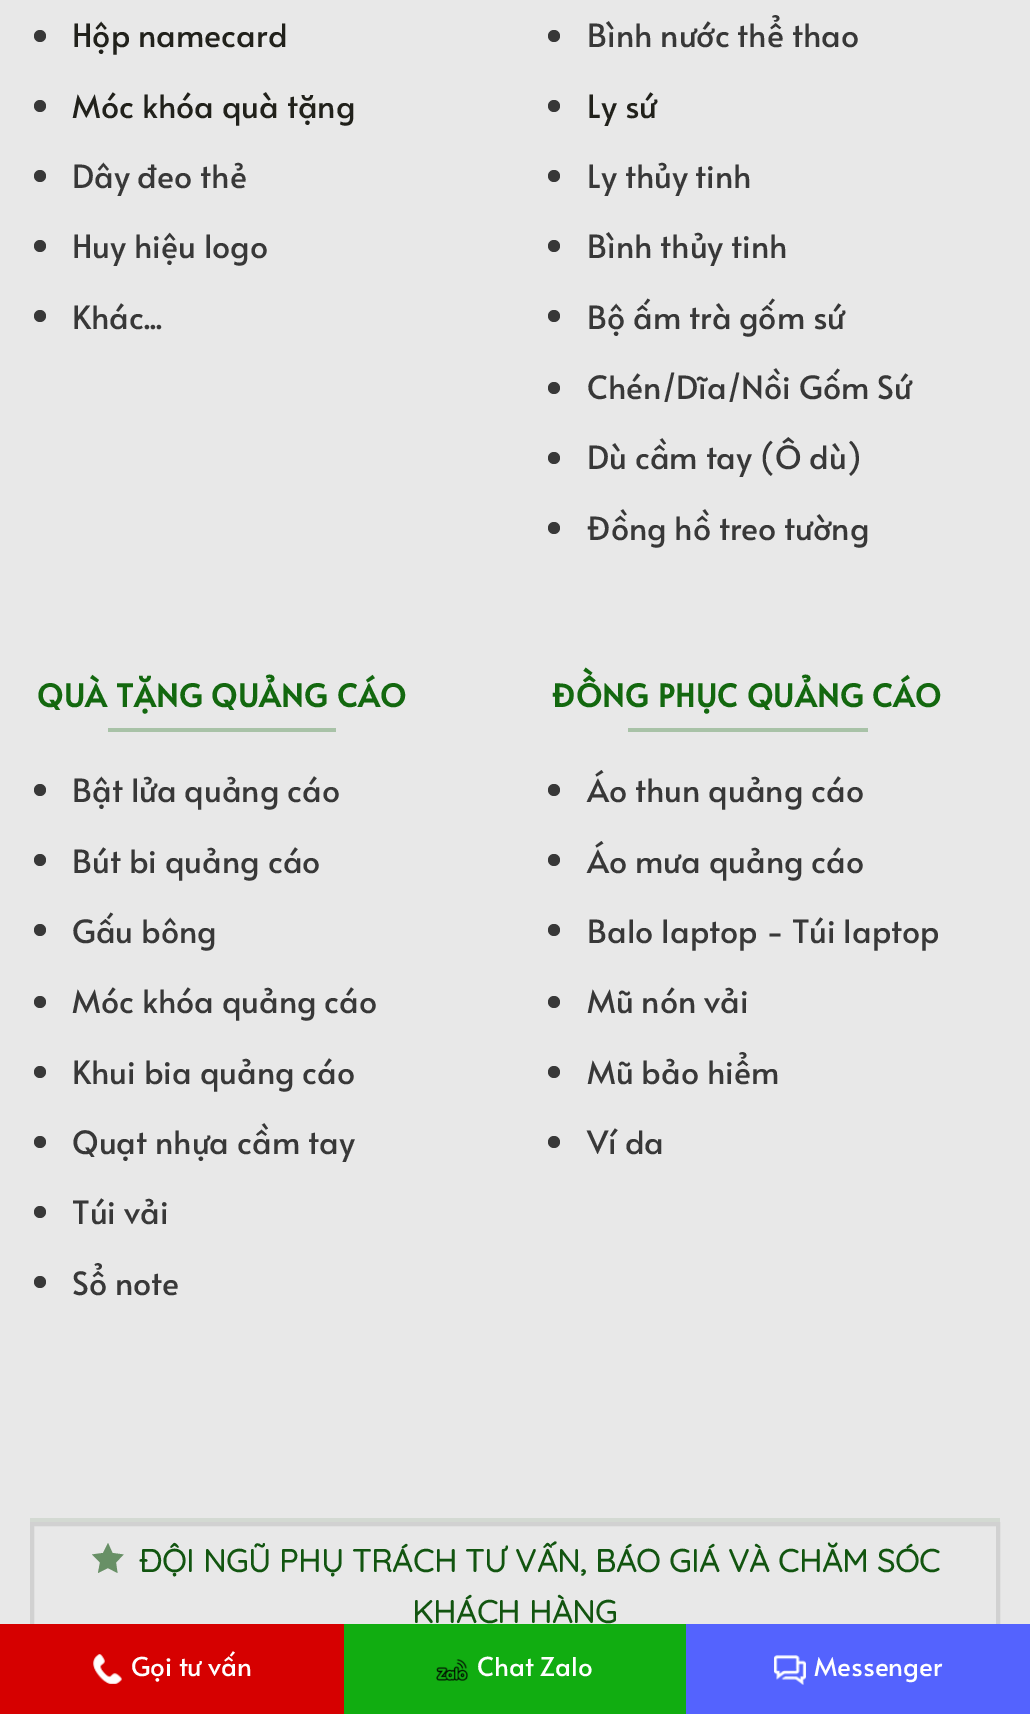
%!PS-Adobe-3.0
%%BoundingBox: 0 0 1030 1714
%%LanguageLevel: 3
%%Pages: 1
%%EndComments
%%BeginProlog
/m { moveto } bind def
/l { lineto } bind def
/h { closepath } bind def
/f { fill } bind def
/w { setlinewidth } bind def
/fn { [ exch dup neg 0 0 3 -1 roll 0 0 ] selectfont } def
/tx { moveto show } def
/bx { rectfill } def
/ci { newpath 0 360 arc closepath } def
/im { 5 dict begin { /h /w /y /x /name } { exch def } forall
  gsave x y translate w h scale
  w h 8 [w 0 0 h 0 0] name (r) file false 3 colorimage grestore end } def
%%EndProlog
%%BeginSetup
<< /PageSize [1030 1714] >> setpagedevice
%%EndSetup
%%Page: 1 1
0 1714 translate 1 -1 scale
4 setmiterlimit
0.91 setgray
0 0 1030 1714 bx
0.22 setgray
40 36 6 ci f
/Alata-Regular 32 fn
0.129 0.129 0.106 setrgbcolor
(Hộp namecard) 72 47 tx
0.22 setgray
40 106 6 ci f
0.129 0.129 0.106 setrgbcolor
(Móc khóa quà tặng) 72 118 tx
0.22 setgray
40 176 6 ci f
(Dây đeo thẻ) 72 188 tx
40 246 6 ci f
(Huy hiệu logo) 72 258 tx
40 316 6 ci f
(Khác...) 72 329 tx
554 36 6 ci f
(Bình nước thể thao) 587 47 tx
554 106 6 ci f
0.129 0.129 0.106 setrgbcolor
(Ly sứ) 587 118 tx
0.22 setgray
554 176 6 ci f
(Ly thủy tinh) 587 188 tx
554 246 6 ci f
(Bình thủy tinh) 587 258 tx
554 316 6 ci f
(Bộ ấm trà gốm sứ) 587 329 tx
554 388 6 ci f
(Chén/Dĩa/Nồi Gốm Sứ) 587 399 tx
554 458 6 ci f
(Dù cầm tay \(Ô dù\)) 587 469 tx
554 528 6 ci f
(Đồng hồ treo tường) 587 540 tx
/Alata-Bold 31 fn
0.075 0.408 0.059 setrgbcolor
37 707 m 0.9 0 (QUÀ TẶNG QUẢNG CÁO) ashow
0.659 0.761 0.655 setrgbcolor
108 728 228 4 bx
0.22 setgray
40 790 6 ci f
/Alata-Regular 32 fn
(Bật lửa quảng cáo) 72 802 tx
40 860 6 ci f
(Bút bi quảng cáo) 72 873 tx
40 930 6 ci f
(Gấu bông) 72 943 tx
40 1002 6 ci f
(Móc khóa quảng cáo) 72 1013 tx
40 1072 6 ci f
(Khui bia quảng cáo) 72 1084 tx
40 1142 6 ci f
(Quạt nhựa cầm tay) 72 1154 tx
40 1212 6 ci f
(Túi vải) 72 1224 tx
40 1282 6 ci f
(Sổ note) 72 1295 tx
/Alata-Bold 31 fn
0.075 0.408 0.059 setrgbcolor
552 707 m 0.9 0 (ĐỒNG PHỤC QUẢNG CÁO) ashow
0.659 0.761 0.655 setrgbcolor
628 728 240 4 bx
0.22 setgray
554 790 6 ci f
/Alata-Regular 32 fn
(Áo thun quảng cáo) 587 802 tx
554 860 6 ci f
(Áo mưa quảng cáo) 587 873 tx
554 930 6 ci f
(Balo laptop - Túi laptop) 587 943 tx
554 1002 6 ci f
(Mũ nón vải) 587 1013 tx
554 1072 6 ci f
(Mũ bảo hiểm) 587 1084 tx
554 1142 6 ci f
(Ví da) 587 1154 tx
0.827 0.851 0.824 setrgbcolor
30 1518 970 4 bx
0.82 setgray
4 w
32 1524 966 124 rectstroke
0.408 0.565 0.4 setrgbcolor
123.5 1554.5 m 112.5 1553 l 108 1543 l 103 1553 l 92 1554.5 l 100 1562.5 l 98 1573 l 108 1568 l 117.5 1573 l 116 1562.5 l h f
/Quicksand-Bold 31.7 fn
0.071 0.333 0.063 setrgbcolor
(ĐỘI NGŨ PHỤ TRÁCH TƯ VẤN, BÁO GIÁ VÀ CHĂM SÓC) 139 1572 tx
(KHÁCH HÀNG) 412 1623 tx
0.839 0 0 setrgbcolor
0 1624 344 90 bx
(image0.raw) 93 1654 29 30 im
/Alata-Regular 26 fn
1 setgray
(Gọi tư vấn) 131 1676 tx
0.067 0.678 0.067 setrgbcolor
344 1624 342 90 bx
(image1.raw) 436 1659 32 22 im
1 setgray
(Chat Zalo) 477 1676 tx
0.329 0.388 0.996 setrgbcolor
686 1624 344 90 bx
(image2.raw) 774 1655 32 30 im
1 setgray
(Messenger) 814 1676 tx
showpage
%%EOF
